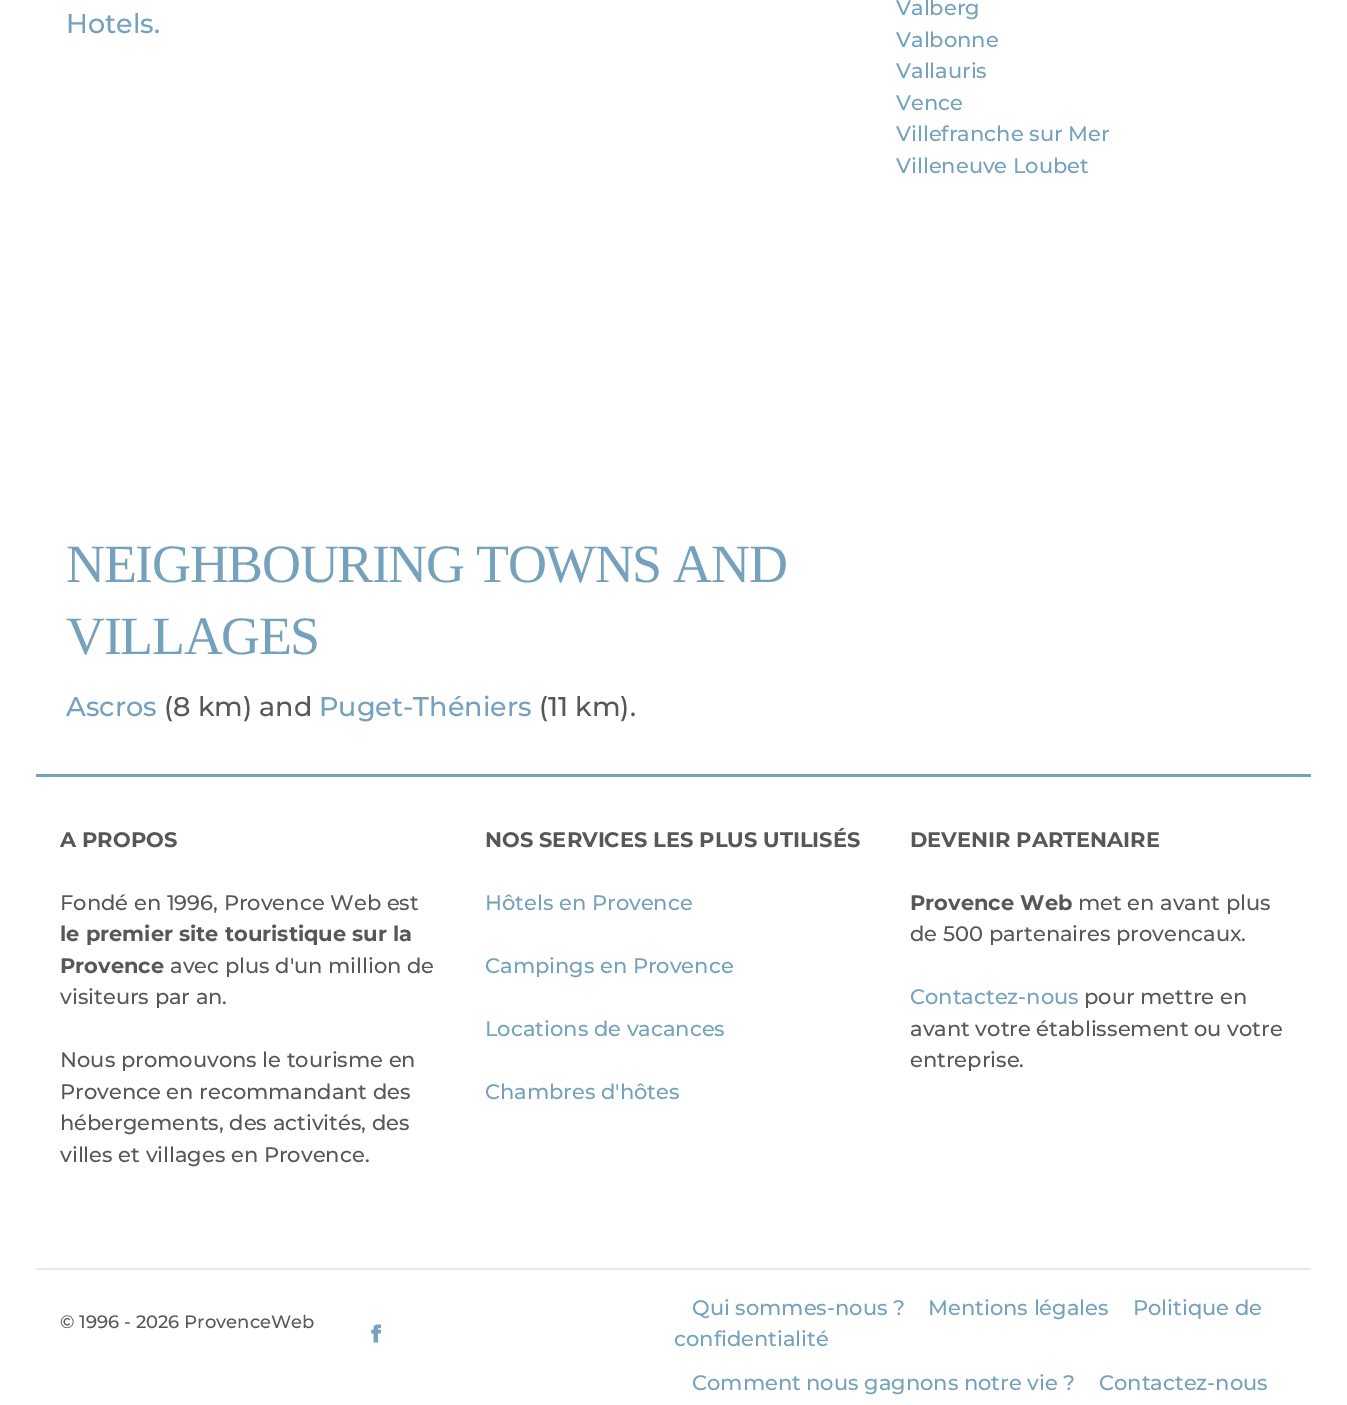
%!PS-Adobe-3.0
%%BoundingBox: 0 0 1347 1405
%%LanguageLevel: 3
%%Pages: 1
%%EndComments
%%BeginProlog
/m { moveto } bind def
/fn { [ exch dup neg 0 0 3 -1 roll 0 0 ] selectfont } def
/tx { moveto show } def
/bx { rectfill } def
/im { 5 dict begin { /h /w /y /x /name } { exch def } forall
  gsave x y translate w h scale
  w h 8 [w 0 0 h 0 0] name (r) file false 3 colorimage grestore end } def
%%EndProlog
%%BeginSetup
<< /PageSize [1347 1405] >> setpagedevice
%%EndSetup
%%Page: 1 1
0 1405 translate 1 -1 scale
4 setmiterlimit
1 setgray
0 0 1347 1405 bx
/Montserrat-Medium 27 fn
0.455 0.631 0.737 setrgbcolor
(Hotels.) 66 33 tx
/LiberationSerif-Regular 54 fn
66 582 m -1.35 0 (NEIGHBOURING TOWNS AND) ashow
66 654 m -1.35 0 (VILLAGES) ashow
/Montserrat-Medium 27 fn
(Ascros) 66 716 tx
0.341 0.341 0.337 setrgbcolor
(\(8 km\) and) 164 716 tx
0.455 0.631 0.737 setrgbcolor
(Puget-Théniers) 319 716 tx
0.341 0.341 0.337 setrgbcolor
(\(11 km\).) 539 716 tx
/Montserrat-Medium 21 fn
0.455 0.631 0.737 setrgbcolor
(Valberg) 896 15 tx
(Valbonne) 896 47 tx
(Vallauris) 896 78 tx
(Vence) 896 110 tx
(Villefranche sur Mer) 896 141 tx
(Villeneuve Loubet) 896 173 tx
36 774 1275 3 bx
/Montserrat-Bold 21 fn
0.341 0.341 0.337 setrgbcolor
(A PROPOS) 60 847 tx
/Montserrat-Medium 21 fn
(Fondé en 1996, Provence Web est) 60 910 tx
/Montserrat-Bold 21 fn
(le premier site touristique sur la) 60 941 tx
(Provence) 60 973 tx
/Montserrat-Medium 21 fn
(avec plus d'un million de) 170 973 tx
(visiteurs par an.) 60 1004 tx
(Nous promouvons le tourisme en) 60 1067 tx
(Provence en recommandant des) 60 1099 tx
(hébergements, des activités, des) 60 1130 tx
(villes et villages en Provence.) 60 1162 tx
/Montserrat-Bold 21 fn
(NOS SERVICES LES PLUS UTILISÉS) 485 847 tx
/Montserrat-Medium 21 fn
0.455 0.631 0.737 setrgbcolor
(Hôtels en Provence) 485 910 tx
(Campings en Provence) 485 973 tx
(Locations de vacances) 485 1036 tx
(Chambres d'hôtes) 485 1099 tx
/Montserrat-Bold 21 fn
0.341 0.341 0.337 setrgbcolor
(DEVENIR PARTENAIRE) 910 847 tx
(Provence Web) 910 910 tx
/Montserrat-Medium 21 fn
(met en avant plus) 1078 910 tx
(de 500 partenaires provencaux.) 910 941 tx
0.455 0.631 0.737 setrgbcolor
(Contactez-nous) 910 1004 tx
0.341 0.341 0.337 setrgbcolor
(pour mettre en) 1084 1004 tx
(avant votre établissement ou votre) 910 1036 tx
(entreprise.) 910 1067 tx
0.886 0.91 0.941 setrgbcolor
36 1268 1275 2 bx
/Montserrat-Medium 18 fn
0.341 0.341 0.337 setrgbcolor
(© 1996 - 2026 ProvenceWeb) 60 1328 tx
(image0.raw) 371 1324 11 19 im
/Montserrat-Medium 21 fn
0.455 0.631 0.737 setrgbcolor
(Qui sommes-nous ?) 692 1315 tx
(Mentions légales) 928 1315 tx
(Politique de) 1133 1315 tx
(confidentialité) 674 1346 tx
(Comment nous gagnons notre vie ?) 692 1390 tx
(Contactez-nous) 1099 1390 tx
showpage
%%EOF
